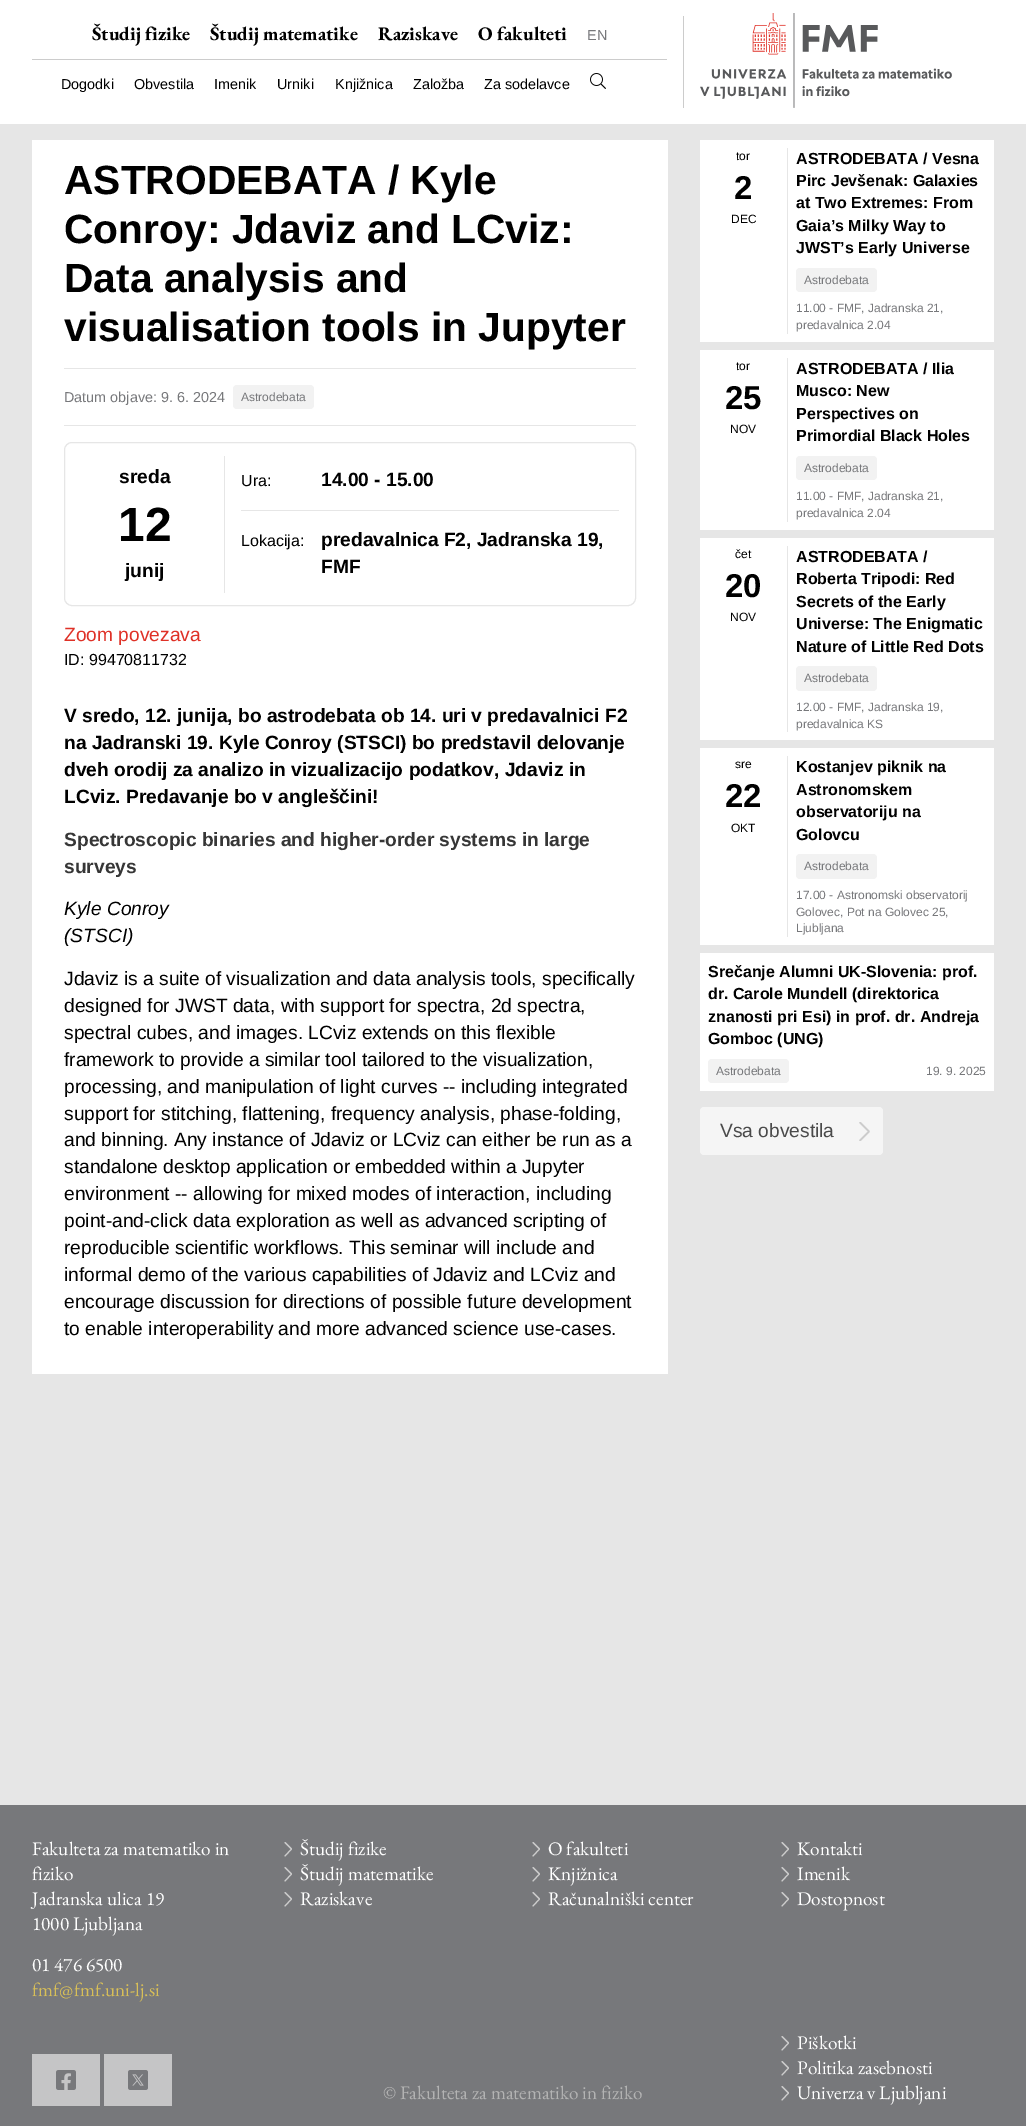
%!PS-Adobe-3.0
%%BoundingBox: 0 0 1026 2126
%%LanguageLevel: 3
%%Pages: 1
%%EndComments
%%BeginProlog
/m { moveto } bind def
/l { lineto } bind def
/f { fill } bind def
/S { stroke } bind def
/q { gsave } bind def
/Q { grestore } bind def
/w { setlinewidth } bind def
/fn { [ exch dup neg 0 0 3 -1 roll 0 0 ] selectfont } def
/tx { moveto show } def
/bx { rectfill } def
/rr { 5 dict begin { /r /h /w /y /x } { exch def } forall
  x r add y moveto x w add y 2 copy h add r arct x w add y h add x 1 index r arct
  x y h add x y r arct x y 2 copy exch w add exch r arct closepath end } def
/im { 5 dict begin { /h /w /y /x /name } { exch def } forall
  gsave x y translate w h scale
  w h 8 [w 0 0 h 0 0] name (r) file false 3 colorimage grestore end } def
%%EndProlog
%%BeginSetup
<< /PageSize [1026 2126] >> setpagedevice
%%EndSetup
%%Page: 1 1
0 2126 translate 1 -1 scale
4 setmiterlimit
0.902 setgray
0 0 1026 2126 bx
1 setgray
0 0 1026 124 bx
0.8 setgray
683 16 1 92 bx
32 59 635 1 bx
/EBGaramond-Bold 19.2 fn
0 setgray
(Študij fizike) 92 40 tx
(Študij matematike) 210 40 tx
(Raziskave) 378 40 tx
(O fakulteti) 478 40 tx
/LiberationSans-Regular 14.4 fn
0.467 0.471 0.482 setrgbcolor
(EN) 587 40 tx
0 setgray
(Dogodki) 61 89 tx
(Obvestila) 134 89 tx
(Imenik) 214 89 tx
(Urniki) 277 89 tx
(Knjižnica) 335 89 tx
(Založba) 413 89 tx
(Za sodelavce) 484 89 tx
(image0.raw) 590 73 16 16 im
(image1.raw) 700 13 252 95 im
1 setgray
32 140 636 1234 bx
/LiberationSans-Bold 40.75 fn
0 setgray
(ASTRODEBATA / Kyle) 64 194 tx
(Conroy: Jdaviz and LCviz:) 64 243 tx
(Data analysis and) 64 292 tx
(visualisation tools in Jupyter) 64 341 tx
0.902 setgray
64 368 572 1 bx
64 425 572 1 bx
/LiberationSans-Regular 14.4 fn
0.467 0.471 0.482 setrgbcolor
(Datum objave: 9. 6. 2024) 64 402 tx
0.949 setgray
233 385 81 24 4 rr f
/LiberationSans-Regular 12 fn
0.467 0.471 0.482 setrgbcolor
(Astrodebata) 241 401 tx
0.902 setgray
64.5 442.5 571 163 7.5 rr S
224 456 1 137 bx
/LiberationSans-Bold 19.2 fn
0 setgray
(sreda) 119 483 tx
/LiberationSans-Bold 48 fn
(12) 118 541 tx
/LiberationSans-Bold 19.2 fn
(junij) 125 577 tx
/LiberationSans-Regular 16 fn
(Ura:) 241 486 tx
/LiberationSans-Bold 19.2 fn
(14.00 - 15.00) 321 486 tx
0.902 setgray
241 510 378 1 bx
/LiberationSans-Regular 16 fn
0 setgray
(Lokacija:) 241 546 tx
/LiberationSans-Bold 19.2 fn
(predavalnica F2, Jadranska 19,) 321 546 tx
(FMF) 321 573 tx
/LiberationSans-Regular 19.2 fn
0.875 0.192 0.153 setrgbcolor
(Zoom povezava) 64 641 tx
/LiberationSans-Regular 16 fn
0 setgray
(ID: 99470811732) 64 665 tx
/LiberationSans-Bold 19.2 fn
(V sredo, 12. junija, bo astrodebata ob 14. uri v predavalnici F2) 64 722 tx
(na Jadranski 19. Kyle Conroy \(STSCI\) bo predstavil delovanje) 64 749 tx
(dveh orodij za analizo in vizualizacijo podatkov, Jdaviz in) 64 776 tx
(LCviz. Predavanje bo v angleščini!) 64 803 tx
0.212 setgray
(Spectroscopic binaries and higher-order systems in large) 64 846 tx
(surveys) 64 873 tx
/LiberationSans-Italic 19.2 fn
0 setgray
(Kyle Conroy) 64 915 tx
(\(STSCI\)) 64 942 tx
/LiberationSans-Regular 19.2 fn
(Jdaviz is a suite of visualization and data analysis tools, specifically) 64 985 tx
(designed for JWST data, with support for spectra, 2d spectra,) 64 1012 tx
(spectral cubes, and images. LCviz extends on this flexible) 64 1039 tx
(framework to provide a similar tool tailored to the visualization,) 64 1066 tx
(processing, and manipulation of light curves -- including integrated) 64 1093 tx
(support for stitching, flattening, frequency analysis, phase-folding,) 64 1120 tx
(and binning. Any instance of Jdaviz or LCviz can either be run as a) 64 1146 tx
(standalone desktop application or embedded within a Jupyter) 64 1173 tx
(environment -- allowing for mixed modes of interaction, including) 64 1200 tx
(point-and-click data exploration as well as advanced scripting of) 64 1227 tx
(reproducible scientific workflows. This seminar will include and) 64 1254 tx
(informal demo of the various capabilities of Jdaviz and LCviz and) 64 1281 tx
(encourage discussion for directions of possible future development) 64 1308 tx
(to enable interoperability and more advanced science use-cases.) 64 1335 tx
1 setgray
700 140 294 202 bx
0.902 setgray
787 148 1 186 bx
/LiberationSans-Regular 12 fn
0 setgray
(tor) 736 160 tx
/LiberationSans-Bold 33 fn
(2) 734 199 tx
/LiberationSans-Regular 12 fn
(DEC) 731 223 tx
/LiberationSans-Bold 16 fn
(ASTRODEBATA / Vesna) 796 164 tx
(Pirc Jevšenak: Galaxies) 796 186 tx
(at Two Extremes: From) 796 208 tx
(Gaia’s Milky Way to) 796 231 tx
(JWST’s Early Universe) 796 253 tx
0.949 setgray
796 268 81 24 4 rr f
/LiberationSans-Regular 12 fn
0.467 0.471 0.482 setrgbcolor
(Astrodebata) 804 284 tx
(11.00 - FMF, Jadranska 21,) 796 312 tx
(predavalnica 2.04) 796 329 tx
1 setgray
700 350 294 180 bx
0.902 setgray
787 358 1 164 bx
0 setgray
(tor) 736 370 tx
/LiberationSans-Bold 33 fn
(25) 725 409 tx
/LiberationSans-Regular 12 fn
(NOV) 730 433 tx
/LiberationSans-Bold 16 fn
(ASTRODEBATA / Ilia) 796 374 tx
(Musco: New) 796 396 tx
(Perspectives on) 796 419 tx
(Primordial Black Holes) 796 441 tx
0.949 setgray
796 456 81 24 4 rr f
/LiberationSans-Regular 12 fn
0.467 0.471 0.482 setrgbcolor
(Astrodebata) 804 472 tx
(11.00 - FMF, Jadranska 21,) 796 500 tx
(predavalnica 2.04) 796 517 tx
1 setgray
700 538 294 202 bx
0.902 setgray
787 546 1 186 bx
0 setgray
(čet) 735 558 tx
/LiberationSans-Bold 33 fn
(20) 725 597 tx
/LiberationSans-Regular 12 fn
(NOV) 730 621 tx
/LiberationSans-Bold 16 fn
(ASTRODEBATA /) 796 562 tx
(Roberta Tripodi: Red) 796 584 tx
(Secrets of the Early) 796 607 tx
(Universe: The Enigmatic) 796 629 tx
(Nature of Little Red Dots) 796 652 tx
0.949 setgray
796 666 81 25 4 rr f
/LiberationSans-Regular 12 fn
0.467 0.471 0.482 setrgbcolor
(Astrodebata) 804 682 tx
(12.00 - FMF, Jadranska 19,) 796 711 tx
(predavalnica KS) 796 728 tx
1 setgray
700 748 294 197 bx
0.902 setgray
787 756 1 181 bx
0 setgray
(sre) 735 768 tx
/LiberationSans-Bold 33 fn
(22) 725 807 tx
/LiberationSans-Regular 12 fn
(OKT) 731 832 tx
/LiberationSans-Bold 16 fn
(Kostanjev piknik na) 796 772 tx
(Astronomskem) 796 795 tx
(observatoriju na) 796 817 tx
(Golovcu) 796 840 tx
0.949 setgray
796 854 81 25 4 rr f
/LiberationSans-Regular 12 fn
0.467 0.471 0.482 setrgbcolor
(Astrodebata) 804 870 tx
(17.00 - Astronomski observatorij) 796 899 tx
(Golovec, Pot na Golovec 25,) 796 916 tx
(Ljubljana) 796 932 tx
1 setgray
700 953 294 138 bx
/LiberationSans-Bold 16 fn
0 setgray
(Srečanje Alumni UK-Slovenia: prof.) 708 977 tx
(dr. Carole Mundell \(direktorica) 708 999 tx
(znanosti pri Esi\) in prof. dr. Andreja) 708 1022 tx
(Gomboc \(UNG\)) 708 1044 tx
0.949 setgray
708 1059 81 24 4 rr f
/LiberationSans-Regular 12 fn
0.467 0.471 0.482 setrgbcolor
(Astrodebata) 716 1075 tx
(19. 9. 2025) 926 1075 tx
0.961 setgray
700 1107 183 48 4 rr f
/LiberationSans-Regular 19.2 fn
0.29 setgray
(Vsa obvestila) 720 1137 tx
q
855 1122 19 19 rectclip
0.8 setgray
1.5 w
1 setlinecap
1 setlinejoin
860 1140.5 m 869 1131.5 l 860 1122.5 l S
Q
0.467 0.471 0.482 setrgbcolor
0 1805 1026 321 bx
/EBGaramond-Regular 19.2 fn
1 setgray
(Fakulteta za matematiko in) 32 1855 tx
(fiziko) 32 1880 tx
(Jadranska ulica 19) 32 1905 tx
(1000 Ljubljana) 32 1930 tx
(01 476 6500) 32 1971 tx
0.847 0.749 0.345 setrgbcolor
(fmf@fmf.uni-lj.si) 32 1996 tx
0.8 setgray
1.1 w
1 setlinecap
1 setlinejoin
285 1856 m 291.5 1849 l 285 1842.5 l S
1 setgray
(Študij fizike) 300 1855 tx
0.8 setgray
285 1881 m 291.5 1874 l 285 1867.5 l S
1 setgray
(Študij matematike) 300 1880 tx
0.8 setgray
285 1906 m 291.5 1899 l 285 1892.5 l S
1 setgray
(Raziskave) 300 1905 tx
0.8 setgray
533 1856 m 539.5 1849 l 533 1842.5 l S
1 setgray
(O fakulteti) 548 1855 tx
0.8 setgray
533 1881 m 539.5 1874 l 533 1867.5 l S
1 setgray
(Knjižnica) 548 1880 tx
0.8 setgray
533 1906 m 539.5 1899 l 533 1892.5 l S
1 setgray
(Računalniški center) 548 1905 tx
0.8 setgray
782 1856 m 788.5 1849 l 782 1842.5 l S
1 setgray
(Kontakti) 797 1855 tx
0.8 setgray
782 1881 m 788.5 1874 l 782 1867.5 l S
1 setgray
(Imenik) 797 1880 tx
0.8 setgray
782 1906 m 788.5 1899 l 782 1892.5 l S
1 setgray
(Dostopnost) 797 1905 tx
0.773 0.773 0.776 setrgbcolor
32 2054 68 52 bx
(image2.raw) 56 2070 20 20 im
104 2054 68 52 bx
(image3.raw) 128 2070 20 20 im
0.702 setgray
(© Fakulteta za matematiko in fiziko) 383 2099 tx
0.8 setgray
782 2050 m 788.5 2043 l 782 2036.5 l S
1 setgray
(Piškotki) 797 2049 tx
0.8 setgray
782 2075 m 788.5 2068 l 782 2061.5 l S
1 setgray
(Politika zasebnosti) 797 2074 tx
0.8 setgray
782 2100 m 788.5 2093 l 782 2086.5 l S
1 setgray
(Univerza v Ljubljani) 797 2099 tx
showpage
%%EOF
